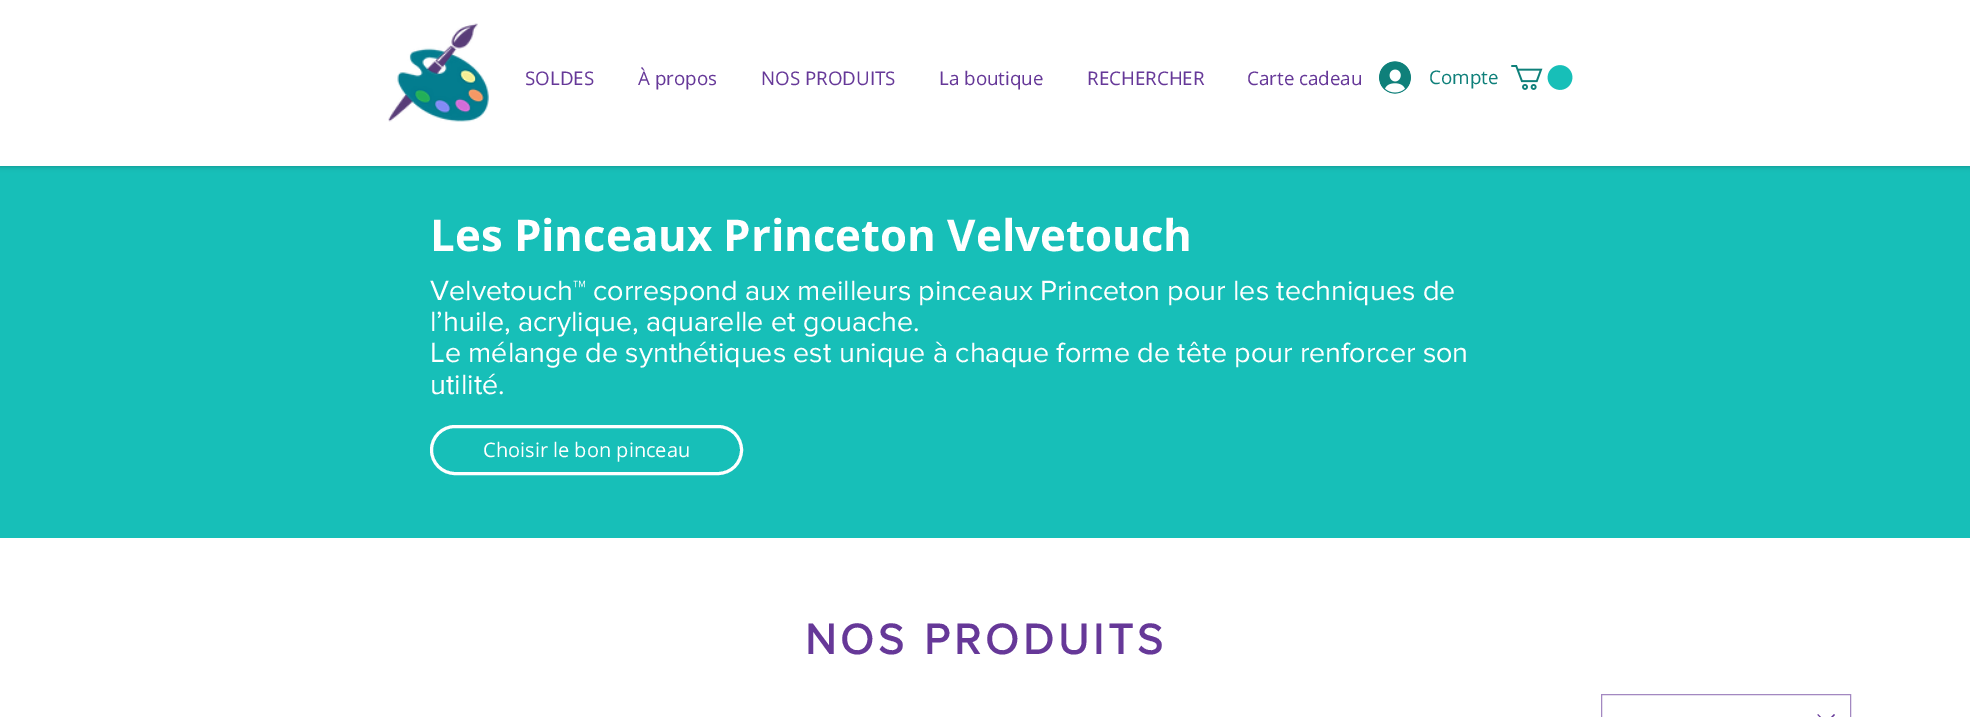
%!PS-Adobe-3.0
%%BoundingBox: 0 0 1970 717
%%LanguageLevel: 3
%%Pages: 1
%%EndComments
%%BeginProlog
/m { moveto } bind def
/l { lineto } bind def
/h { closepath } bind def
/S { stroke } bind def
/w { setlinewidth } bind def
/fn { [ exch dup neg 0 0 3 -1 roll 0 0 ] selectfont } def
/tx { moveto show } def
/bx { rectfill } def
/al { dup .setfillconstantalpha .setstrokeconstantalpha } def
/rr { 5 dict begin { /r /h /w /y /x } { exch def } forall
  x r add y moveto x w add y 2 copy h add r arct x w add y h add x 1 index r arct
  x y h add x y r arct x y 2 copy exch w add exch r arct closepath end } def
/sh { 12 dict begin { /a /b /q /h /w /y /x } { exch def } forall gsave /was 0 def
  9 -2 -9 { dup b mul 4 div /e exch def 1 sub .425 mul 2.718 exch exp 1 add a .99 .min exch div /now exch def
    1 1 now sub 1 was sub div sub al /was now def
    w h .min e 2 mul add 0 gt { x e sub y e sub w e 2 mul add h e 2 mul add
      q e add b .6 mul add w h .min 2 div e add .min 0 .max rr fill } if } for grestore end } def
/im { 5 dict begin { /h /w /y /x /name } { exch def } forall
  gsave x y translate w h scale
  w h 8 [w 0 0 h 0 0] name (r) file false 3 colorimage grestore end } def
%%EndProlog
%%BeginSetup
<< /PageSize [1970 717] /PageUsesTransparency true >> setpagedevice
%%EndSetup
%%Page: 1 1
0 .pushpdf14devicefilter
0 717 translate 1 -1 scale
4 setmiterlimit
1 setgray
0 0 1970 717 bx
0.09 0.749 0.722 setrgbcolor
0 166 1970 372 bx
0 setgray
0 0 1970 166 0 3 0.3 sh
1 setgray
0 0 1970 166 bx
(image0.raw) 388 23 101 99 im
/OpenSans-Regular 18.75 fn
0.4 0.22 0.596 setrgbcolor
(SOLDES) 525 85 tx
(À propos) 638 85 tx
(NOS PRODUITS) 761 85 tx
(La boutique) 939 85 tx
(RECHERCHER) 1087 85 tx
(Carte cadeau) 1247 85 tx
(image1.raw) 1379 61 32 33 im
0.059 0.502 0.478 setrgbcolor
(Compte) 1429 84 tx
(image2.raw) 1511 65 62 25 im
/OpenSans-Bold 43.75 fn
1 setgray
(Les Pinceaux Princeton Velvetouch) 430 251 tx
/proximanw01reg-Regular 28.75 fn
(Velvetouch™ correspond aux meilleurs pinceaux Princeton pour les techniques de) 430 300 tx
(l’huile, acrylique, aquarelle et gouache.) 430 331 tx
(Le mélange de synthétiques est unique à chaque forme de tête pour renforcer son) 430 362 tx
(utilité.) 430 394 tx
3 w
431.5 426.5 310 47 23.5 rr S
/OpenSans-Regular 20 fn
(Choisir le bon pinceau) 483 457 tx
/proximanw01reg-Bold 43.75 fn
0.4 0.22 0.596 setrgbcolor
805 654 m 4.4 0 (NOS PRODUITS) ashow
0.639 0.533 0.757 setrgbcolor
1 w
1601.5 694.5 249 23 rectstroke
0.4 0.22 0.596 setrgbcolor
1834 714 m 1835 715 l 1826 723.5 l 1817.5 715 l 1818 714 l 1826 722 l h eofill
.poppdf14devicefilter showpage
%%EOF
